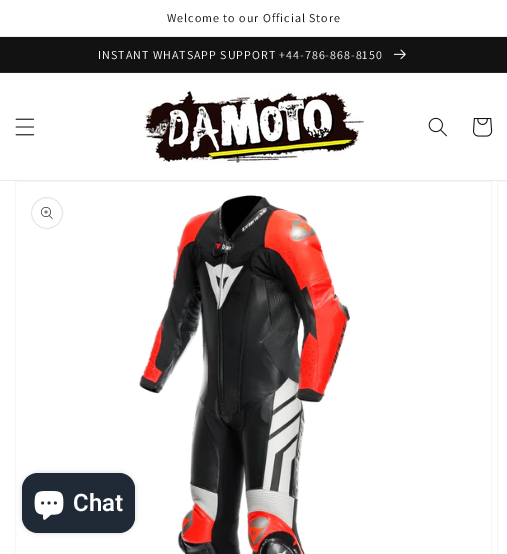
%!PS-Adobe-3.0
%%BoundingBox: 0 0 507 554
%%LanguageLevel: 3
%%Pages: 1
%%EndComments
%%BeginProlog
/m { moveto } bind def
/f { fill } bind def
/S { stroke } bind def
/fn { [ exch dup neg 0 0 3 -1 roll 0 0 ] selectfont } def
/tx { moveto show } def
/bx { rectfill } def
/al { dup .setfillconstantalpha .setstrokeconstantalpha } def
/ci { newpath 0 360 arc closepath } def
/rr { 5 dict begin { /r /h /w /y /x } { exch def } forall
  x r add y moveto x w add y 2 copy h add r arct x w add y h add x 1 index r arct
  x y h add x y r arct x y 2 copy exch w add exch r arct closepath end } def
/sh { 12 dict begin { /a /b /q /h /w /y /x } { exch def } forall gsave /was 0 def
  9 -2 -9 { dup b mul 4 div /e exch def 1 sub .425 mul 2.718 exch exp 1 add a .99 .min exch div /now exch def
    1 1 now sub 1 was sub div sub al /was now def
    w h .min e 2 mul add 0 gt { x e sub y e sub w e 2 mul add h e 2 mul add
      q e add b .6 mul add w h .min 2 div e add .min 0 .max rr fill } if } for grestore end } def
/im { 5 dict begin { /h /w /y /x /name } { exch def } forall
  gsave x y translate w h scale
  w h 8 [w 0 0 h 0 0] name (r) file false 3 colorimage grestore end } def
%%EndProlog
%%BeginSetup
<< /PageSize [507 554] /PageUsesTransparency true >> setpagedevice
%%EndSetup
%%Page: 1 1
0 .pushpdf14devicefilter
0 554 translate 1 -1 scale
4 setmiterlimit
1 setgray
0 0 507 554 bx
0.925 setgray
0 36 507 1 bx
/Assistant-Regular 12 fn
0.071 setgray
167 22 m 1 0 (Welcome to our Official Store) ashow
0 37 507 35 bx
0.145 setgray
0 72 507 1 bx
1 setgray
98 59 m 1 0 (INSTANT WHATSAPP SUPPORT +44-786-868-8150) ashow
(image0.raw) 394 49 12 11 im
0.925 setgray
0 180 507 1 bx
(image1.raw) 15 118 20 18 im
(image2.raw) 144 91 220 72 im
(image3.raw) 428 117 19 20 im
(image4.raw) 473 118 20 19 im
0.965 setgray
15.5 181.5 476 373 rectstroke
0.906 setgray
47 213 15.5 ci S
(image5.raw) 41 207 12 12 im
(image6.raw) 139 195 211 359 im
0.965 setgray
497.5 181.5 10 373 rectstroke
0 setgray
22 473 113 60 16 2.5 0.15 sh
0.125 0.165 0.212 setrgbcolor
22 473 113 60 16 rr f
(image7.raw) 34 491 30 29 im
/Roboto-SemiBold 24 fn
1 setgray
(Chat) 73 511 tx
.poppdf14devicefilter showpage
%%EOF
